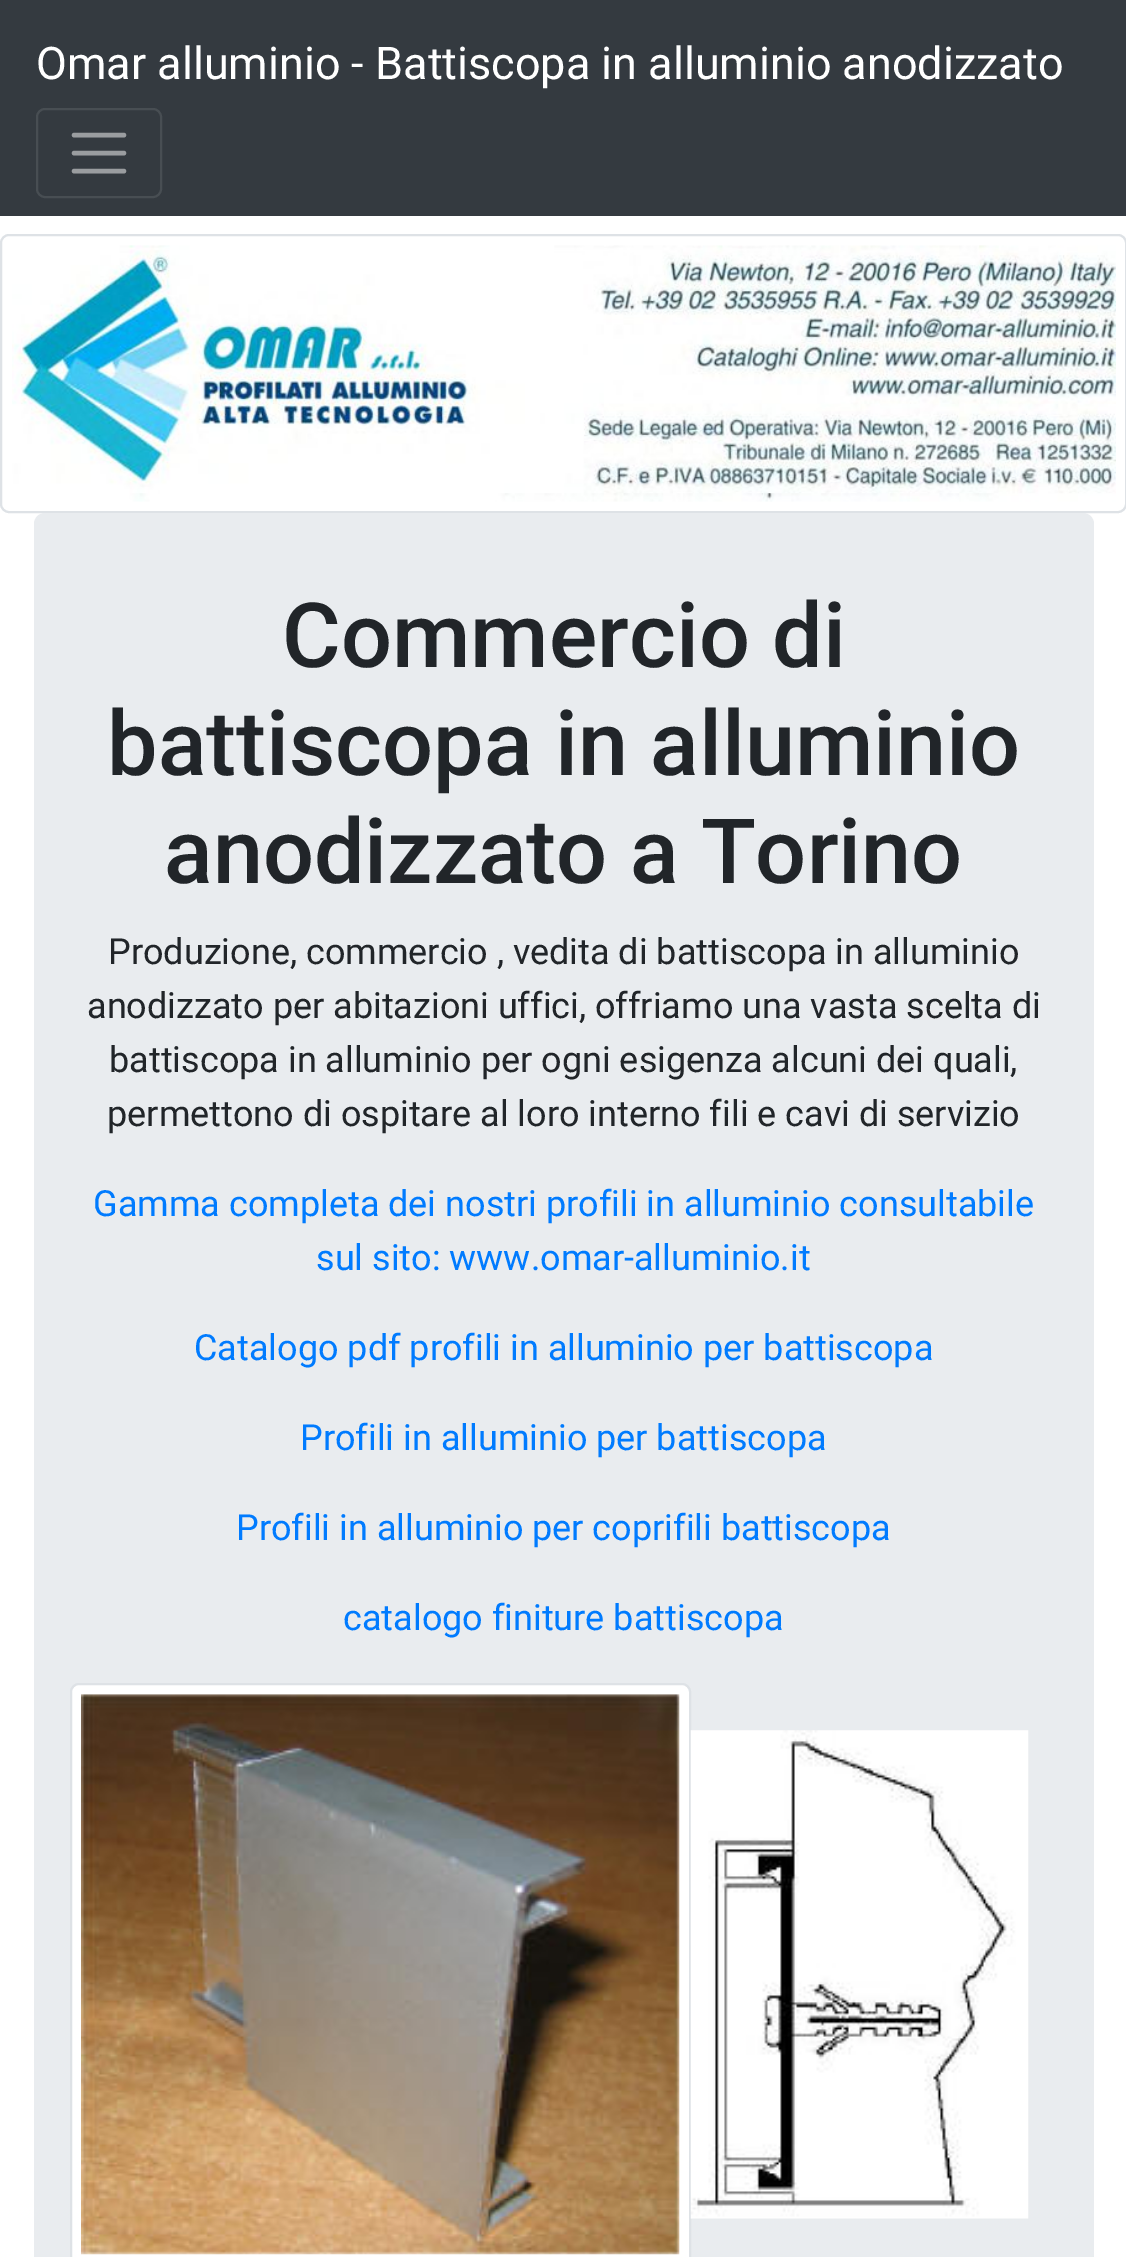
%!PS-Adobe-3.0
%%BoundingBox: 0 0 1126 2257
%%LanguageLevel: 3
%%Pages: 1
%%EndComments
%%BeginProlog
/m { moveto } bind def
/l { lineto } bind def
/f { fill } bind def
/S { stroke } bind def
/q { gsave } bind def
/Q { grestore } bind def
/w { setlinewidth } bind def
/fn { [ exch dup neg 0 0 3 -1 roll 0 0 ] selectfont } def
/tx { moveto show } def
/bx { rectfill } def
/rr { 5 dict begin { /r /h /w /y /x } { exch def } forall
  x r add y moveto x w add y 2 copy h add r arct x w add y h add x 1 index r arct
  x y h add x y r arct x y 2 copy exch w add exch r arct closepath end } def
/im { 5 dict begin { /h /w /y /x /name } { exch def } forall
  gsave x y translate w h scale
  w h 8 [w 0 0 h 0 0] name (r) file false 3 colorimage grestore end } def
%%EndProlog
%%BeginSetup
<< /PageSize [1126 2257] >> setpagedevice
%%EndSetup
%%Page: 1 1
0 2257 translate 1 -1 scale
4 setmiterlimit
1 setgray
0 0 1126 2257 bx
0.204 0.227 0.251 setrgbcolor
0 0 1126 216 bx
/Roboto-Regular 45 fn
1 setgray
(Omar alluminio - Battiscopa in alluminio anodizzato) 36 79 tx
0.282 0.306 0.325 setrgbcolor
2 w
37 109 124 88 8 rr S
0.604 0.616 0.627 setrgbcolor
4.5 w
1 setlinecap
74 135 m 124 135 l 74 153 m 124 153 l 74 171 m 124 171 l S
0.871 0.886 0.902 setrgbcolor
2 w
0 setlinecap
1 235 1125 277 8 rr S
(image0.raw) 12 245 1104 257 im
0.914 0.925 0.937 setrgbcolor
34 513 1060 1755 11 rr f
/Roboto-Medium 90 fn
0.129 0.145 0.161 setrgbcolor
(Commercio di) 282 667 tx
(battiscopa in alluminio) 107 775 tx
(anodizzato a Torino) 164 883 tx
/Roboto-Regular 36 fn
(Produzione, commercio , vedita di battiscopa in alluminio) 108 964 tx
(anodizzato per abitazioni uffici, offriamo una vasta scelta di) 87 1018 tx
(battiscopa in alluminio per ogni esigenza alcuni dei quali,) 109 1072 tx
(permettono di ospitare al loro interno fili e cavi di servizio) 107 1126 tx
0 0.482 1 setrgbcolor
(Gamma completa dei nostri profili in alluminio consultabile) 93 1216 tx
(sul sito: www.omar-alluminio.it) 316 1270 tx
(Catalogo pdf profili in alluminio per battiscopa) 194 1360 tx
(Profili in alluminio per battiscopa) 300 1450 tx
(Profili in alluminio per coprifili battiscopa) 236 1540 tx
(catalogo finiture battiscopa) 343 1630 tx
1 setgray
71 1684 619 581 8 rr q f Q
0.871 0.886 0.902 setrgbcolor
S
(image1.raw) 81 1694 599 561 im
(image2.raw) 690 1730 339 489 im
showpage
%%EOF
